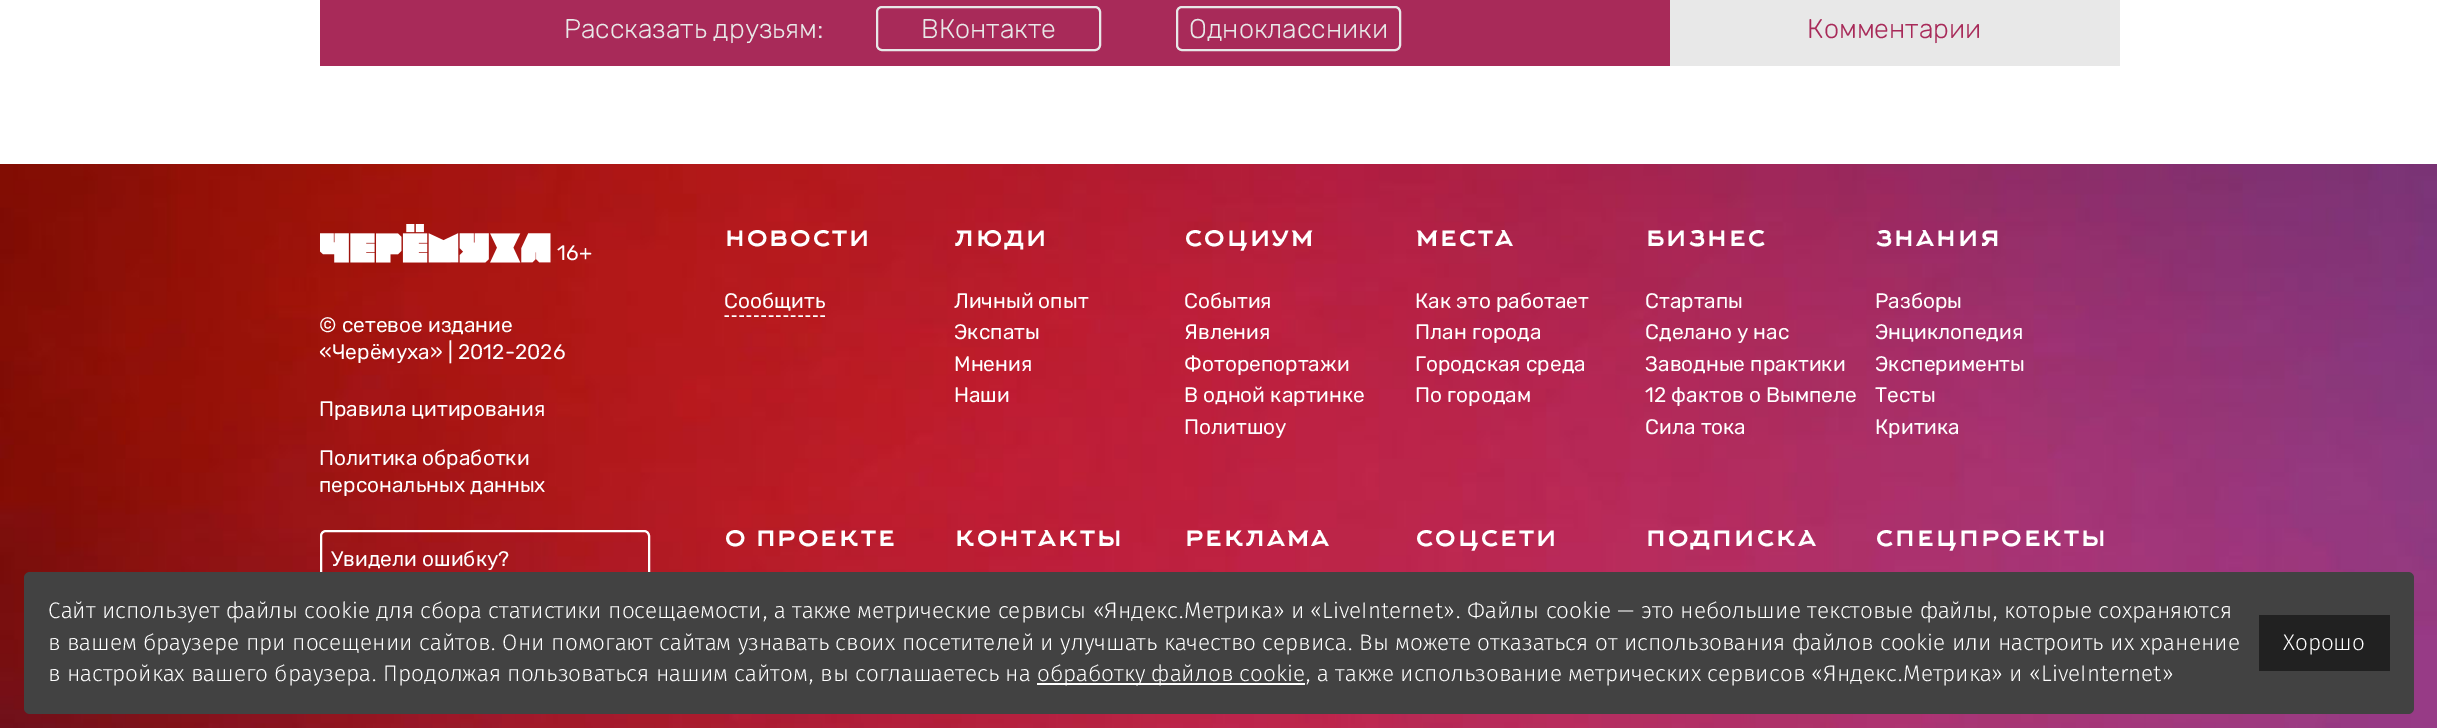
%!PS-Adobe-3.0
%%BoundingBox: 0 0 2437 728
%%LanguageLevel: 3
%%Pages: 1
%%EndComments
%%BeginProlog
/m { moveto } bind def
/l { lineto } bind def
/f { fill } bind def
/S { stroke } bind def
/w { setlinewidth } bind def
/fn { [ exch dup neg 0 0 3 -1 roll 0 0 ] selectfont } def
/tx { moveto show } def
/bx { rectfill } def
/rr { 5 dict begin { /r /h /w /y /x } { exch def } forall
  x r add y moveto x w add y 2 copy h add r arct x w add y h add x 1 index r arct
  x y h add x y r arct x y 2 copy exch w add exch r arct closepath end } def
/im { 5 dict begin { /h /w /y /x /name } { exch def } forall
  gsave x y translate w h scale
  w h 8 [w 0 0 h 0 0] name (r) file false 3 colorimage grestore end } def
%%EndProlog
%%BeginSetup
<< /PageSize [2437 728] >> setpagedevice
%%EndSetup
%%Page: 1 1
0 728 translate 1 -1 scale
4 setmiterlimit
1 setgray
0 0 2437 728 bx
(image0.raw) 0 164 2437 564 im
0.659 0.165 0.349 setrgbcolor
320 0 1350 66 bx
/Rubik-Light 27 fn
0.91 setgray
(Рассказать друзьям:) 564 38 tx
2 w
877 7 223 43 5 rr S
(ВКонтакте) 921 38 tx
1177 7 223 43 5 rr S
(Одноклассники) 1189 38 tx
1670 0 450 66 bx
0.659 0.165 0.349 setrgbcolor
(Комментарии) 1807 38 tx
(image1.raw) 320 224 231 39 im
/Rubik-Regular 21 fn
1 setgray
(16+) 557 260 tx
(© сетевое издание) 319 332 tx
(«Черёмуха» | 2012-2026) 319 359 tx
(Правила цитирования) 319 416 tx
(Политика обработки) 319 465 tx
(персональных данных) 319 492 tx
321 531 328 85 5 rr S
(Увидели ошибку?) 331 566 tx
/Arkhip-Regular 30 fn
(новости) 724 246 tx
1.5 w
[4.5 2.88] 0 setdash
724.5 316 m 825 316 l S
/Rubik-Regular 21 fn
(Сообщить) 724 308 tx
/Arkhip-Regular 30 fn
(люди) 954 246 tx
/Rubik-Regular 21 fn
(Личный опыт) 954 308 tx
(Экспаты) 954 339 tx
(Мнения) 954 371 tx
(Наши) 954 402 tx
/Arkhip-Regular 30 fn
(социум) 1184 246 tx
/Rubik-Regular 21 fn
(События) 1184 308 tx
(Явления) 1184 339 tx
(Фоторепортажи) 1184 371 tx
(В одной картинке) 1184 402 tx
(Политшоу) 1184 434 tx
/Arkhip-Regular 30 fn
(места) 1415 246 tx
/Rubik-Regular 21 fn
(Как это работает) 1415 308 tx
(План города) 1415 339 tx
(Городская среда) 1415 371 tx
(По городам) 1415 402 tx
/Arkhip-Regular 30 fn
(бизнес) 1645 246 tx
/Rubik-Regular 21 fn
(Стартапы) 1645 308 tx
(Сделано у нас) 1645 339 tx
(Заводные практики) 1645 371 tx
(12 фактов о Вымпеле) 1645 402 tx
(Сила тока) 1645 434 tx
/Arkhip-Regular 30 fn
(знания) 1875 246 tx
/Rubik-Regular 21 fn
(Разборы) 1875 308 tx
(Энциклопедия) 1875 339 tx
(Эксперименты) 1875 371 tx
(Тесты) 1875 402 tx
(Критика) 1875 434 tx
/Arkhip-Regular 30 fn
(о проекте) 724 546 tx
(контакты) 954 546 tx
(реклама) 1184 546 tx
(соцсети) 1415 546 tx
(подписка) 1645 546 tx
(спецпроекты) 1875 546 tx
0.259 setgray
24 572 2390 142 6 rr f
/FiraSans-Light 22.5 fn
1 setgray
(Сайт использует файлы cookie для сбора статистики посещаемости, а также метрические сервисы «Яндекс.Метрика» и «LiveInternet». Файлы cookie — это небольшие текстовые файлы, которые сохраняются) 48 618 tx
(в вашем браузере при посещении сайтов. Они помогают сайтам узнавать своих посетителей и улучшать качество сервиса. Вы можете отказаться от использования файлов cookie или настроить их хранение) 48 650 tx
(в настройках вашего браузера. Продолжая пользоваться нашим сайтом, вы соглашаетесь на) 48 681 tx
1037 683 268 2 bx
(обработку файлов cookie, а также использование метрических сервисов «Яндекс.Метрика» и «LiveInternet») 1037 681 tx
0.129 setgray
2259 615 131 56 bx
1 setgray
(Хорошо) 2283 650 tx
showpage
%%EOF
